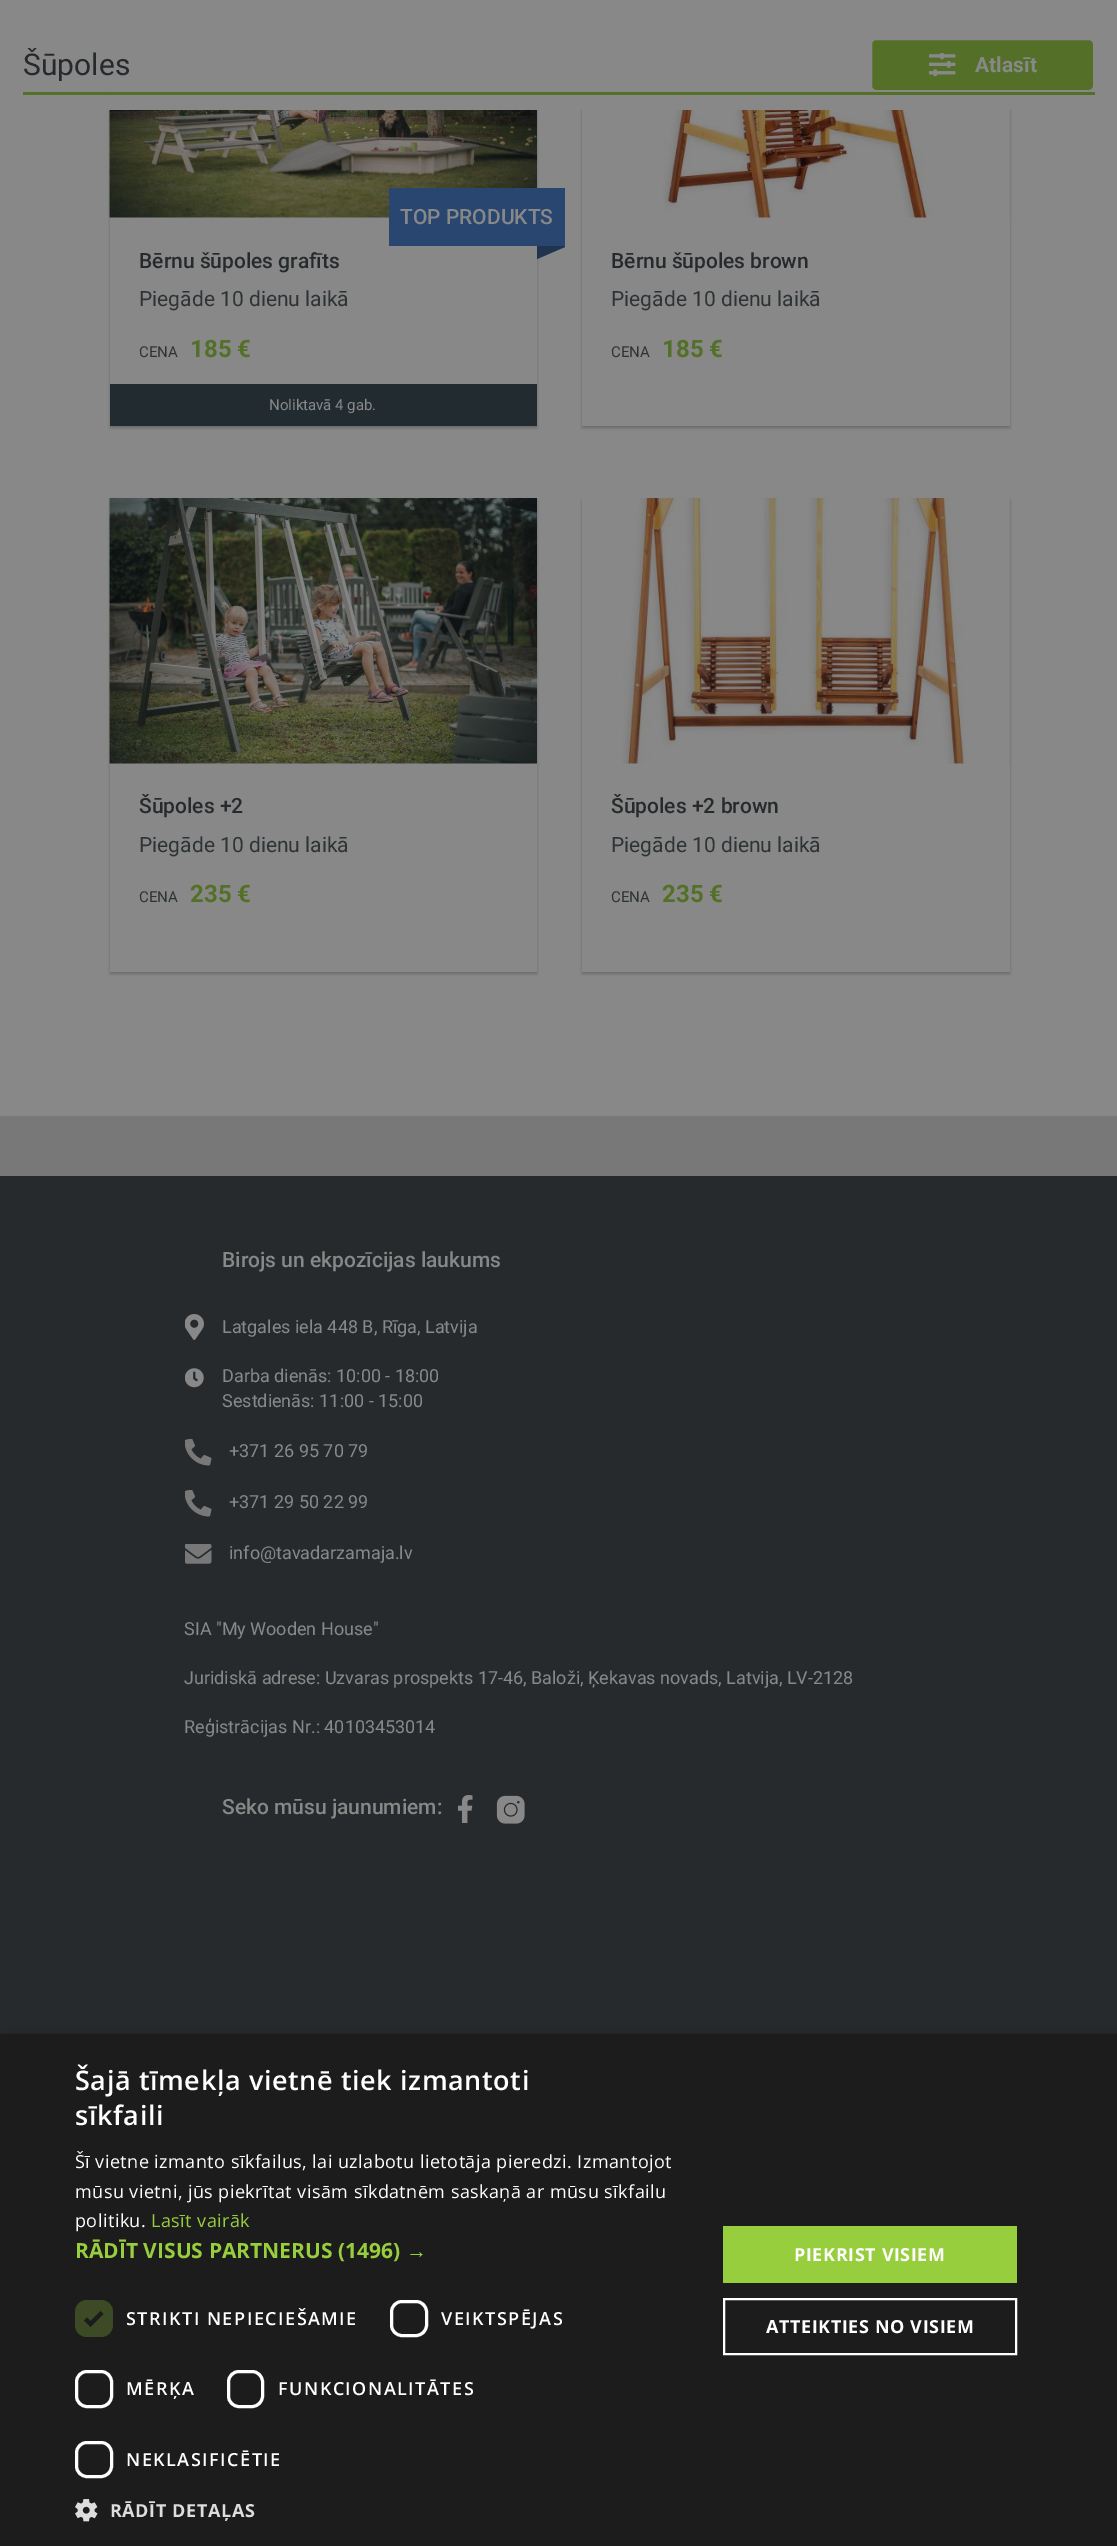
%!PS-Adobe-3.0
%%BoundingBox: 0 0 1117 2546
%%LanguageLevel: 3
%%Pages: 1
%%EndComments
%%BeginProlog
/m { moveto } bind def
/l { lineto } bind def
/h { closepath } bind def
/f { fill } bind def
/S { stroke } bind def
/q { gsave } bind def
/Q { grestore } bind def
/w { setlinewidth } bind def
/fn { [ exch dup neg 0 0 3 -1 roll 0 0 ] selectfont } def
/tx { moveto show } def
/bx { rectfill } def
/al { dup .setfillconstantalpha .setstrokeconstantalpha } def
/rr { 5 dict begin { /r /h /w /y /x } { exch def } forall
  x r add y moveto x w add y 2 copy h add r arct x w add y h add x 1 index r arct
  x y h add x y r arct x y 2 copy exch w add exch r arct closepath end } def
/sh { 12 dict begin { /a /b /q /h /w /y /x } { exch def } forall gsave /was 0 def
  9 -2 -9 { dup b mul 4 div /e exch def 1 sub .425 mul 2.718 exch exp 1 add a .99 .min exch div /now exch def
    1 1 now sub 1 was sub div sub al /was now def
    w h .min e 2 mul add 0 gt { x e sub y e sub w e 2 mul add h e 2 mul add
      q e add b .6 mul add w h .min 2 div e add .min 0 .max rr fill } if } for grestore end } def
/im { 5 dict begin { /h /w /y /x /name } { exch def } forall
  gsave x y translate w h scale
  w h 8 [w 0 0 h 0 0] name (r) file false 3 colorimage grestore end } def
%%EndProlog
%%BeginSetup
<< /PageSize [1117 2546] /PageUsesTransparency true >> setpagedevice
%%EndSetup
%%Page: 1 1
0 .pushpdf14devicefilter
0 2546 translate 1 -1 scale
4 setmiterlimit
0.533 setgray
0 0 1117 2546 bx
q
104 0 m 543 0 l 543 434 l 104 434 l h 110 -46 m 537 -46 l 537 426 l 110 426 l h eoclip newpath
0.035 setgray
110 -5 427 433 0 1.5 0.24 sh
Q
q
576 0 m 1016 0 l 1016 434 l 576 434 l h 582 -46 m 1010 -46 l 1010 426 l 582 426 l h eoclip newpath
0.035 setgray
582 -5 428 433 0 1.5 0.24 sh
Q
108 0 904 110 bx
/Roboto-Regular 30 fn
0.153 0.165 0.173 setrgbcolor
(Šūpoles) 23 75 tx
0.329 0.439 0.157 setrgbcolor
871 39 223 52 5 rr q f Q
0.533 setgray
2 w
S
(image0.raw) 929 53 27 24 im
/Roboto-Bold 21 fn
(Atlasīt) 975 72 tx
0.329 0.439 0.157 setrgbcolor
23 92 1072 3 bx
(image1.raw) 109 110 428 108 im
0.125 0.204 0.314 setrgbcolor
565 188 m 537 188 l 537 259 l 565 247 l h f
0.157 0.275 0.439 setrgbcolor
389 188 176 58 bx
/Roboto-Medium 21 fn
0.533 setgray
(TOP PRODUKTS) 400 224 tx
0.153 0.165 0.173 setrgbcolor
(Bērnu šūpoles grafīts) 139 268 tx
/Roboto-Regular 21 fn
0.18 0.2 0.208 setrgbcolor
(Piegāde 10 dienu laikā) 139 306 tx
/Roboto-Regular 15 fn
(CENA) 139 357 tx
/Roboto-Bold 24 fn
0.329 0.439 0.157 setrgbcolor
(185 €) 190 357 tx
0.133 0.173 0.188 setrgbcolor
110 384 427 42 bx
/Roboto-Regular 15 fn
0.533 setgray
(Noliktavā 4 gab.) 269 410 tx
(image2.raw) 663 110 347 108 im
/Roboto-Medium 21 fn
0.153 0.165 0.173 setrgbcolor
(Bērnu šūpoles brown) 611 268 tx
/Roboto-Regular 21 fn
0.18 0.2 0.208 setrgbcolor
(Piegāde 10 dienu laikā) 611 306 tx
/Roboto-Regular 15 fn
(CENA) 611 357 tx
/Roboto-Bold 24 fn
0.329 0.439 0.157 setrgbcolor
(185 €) 662 357 tx
q
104 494 m 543 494 l 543 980 l 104 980 l h 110 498 m 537 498 l 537 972 l 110 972 l h eoclip newpath
0.035 setgray
110 500 427 474 0 1.5 0.24 sh
Q
(image3.raw) 109 498 428 266 im
/Roboto-Medium 21 fn
0.153 0.165 0.173 setrgbcolor
(Šūpoles +2) 139 813 tx
/Roboto-Regular 21 fn
0.18 0.2 0.208 setrgbcolor
(Piegāde 10 dienu laikā) 139 852 tx
/Roboto-Regular 15 fn
(CENA) 139 902 tx
/Roboto-Bold 24 fn
0.329 0.439 0.157 setrgbcolor
(235 €) 190 902 tx
q
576 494 m 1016 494 l 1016 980 l 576 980 l h 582 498 m 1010 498 l 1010 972 l 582 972 l h eoclip newpath
0.035 setgray
582 500 428 474 0 1.5 0.24 sh
Q
(image4.raw) 622 498 388 266 im
/Roboto-Medium 21 fn
0.153 0.165 0.173 setrgbcolor
(Šūpoles +2 brown) 611 813 tx
/Roboto-Regular 21 fn
0.18 0.2 0.208 setrgbcolor
(Piegāde 10 dienu laikā) 611 852 tx
/Roboto-Regular 15 fn
(CENA) 611 902 tx
/Roboto-Bold 24 fn
0.329 0.439 0.157 setrgbcolor
(235 €) 662 902 tx
0.471 setgray
0 1116 1117 60 bx
0.153 0.165 0.173 setrgbcolor
0 1176 1117 858 bx
/Roboto-Medium 21 fn
0.533 setgray
(Birojs un ekpozīcijas laukums) 222 1267 tx
(image5.raw) 185 1314 19 26 im
/Roboto-Regular 18 fn
(Latgales iela 448 B, Rīga, Latvija) 222 1333 tx
(image6.raw) 185 1368 19 20 im
(Darba dienās: 10:00 - 18:00) 222 1382 tx
(Sestdienās: 11:00 - 15:00) 222 1407 tx
(image7.raw) 185 1439 27 27 im
(+371 26 95 70 79) 229 1457 tx
(image7.raw) 185 1490 27 27 im
(+371 29 50 22 99) 229 1508 tx
(image8.raw) 185 1544 27 20 im
(info@tavadarzamaja.lv) 229 1559 tx
(SIA "My Wooden House") 184 1635 tx
(Juridiskā adrese: Uzvaras prospekts 17-46, Baloži, Ķekavas novads, Latvija, LV-2128) 184 1684 tx
(Reģistrācijas Nr.: 40103453014) 184 1733 tx
/Roboto-Medium 21 fn
(Seko mūsu jaunumiem:) 222 1814 tx
(image9.raw) 458 1795 15 28 im
(image10.raw) 496 1795 29 29 im
0 setgray
2 2037 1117 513 0 6 0.35 sh
0.11 setgray
0 2034 1117 512 bx
/OpenSans-SemiBold 27 fn
1 setgray
75 2090 m 0.6 0 (Šajā tīmekļa vietnē tiek izmantoti) ashow
75 2125 m 0.6 0 (sīkfaili) ashow
/OpenSans-Regular 18 fn
75 2168 m 0.45 0 (Šī vietne izmanto sīkfailus, lai uzlabotu lietotāja pieredzi. Izmantojot) ashow
75 2198 m 0.45 0 (mūsu vietni, jūs piekrītat visām sīkdatnēm saskaņā ar mūsu sīkfailu) ashow
75 2227 m 0.45 0 (politiku.) ashow
0.592 0.808 0.243 setrgbcolor
151 2227 m 0.45 0 (Lasīt vairāk) ashow
/OpenSans-Bold 21 fn
(RĀDĪT VISUS PARTNERUS \(1496\)) 75 2258 tx
/LiberationSans-Bold 21 fn
(→) 406 2258 tx
0.235 0.29 0.145 setrgbcolor
75 2300 38 37 12 rr f
0.11 setgray
3.9 w
85.5 2319 m 90.5 2324 l 102 2312.5 l S
/OpenSans-SemiBold 18 fn
1 setgray
126 2325 m 1.5 0 (STRIKTI NEPIECIEŠAMIE) ashow
3 w
391.5 2301.5 35 34 10.5 rr S
441 2325 m 1.5 0 (VEIKTSPĒJAS) ashow
76.5 2371.5 35 35 10.5 rr S
126 2395 m 1.5 0 (MĒRĶA) ashow
228.5 2371.5 34 35 10.5 rr S
278 2395 m 1.5 0 (FUNKCIONALITĀTES) ashow
76.5 2442.5 35 34 10.5 rr S
126 2466 m 1.5 0 (NEKLASIFICĒTIE) ashow
(image11.raw) 75 2499 23 23 im
/OpenSans-Bold 18 fn
0.867 setgray
110 2517 m 0.6 0 (RĀDĪT DETAĻAS) ashow
0.592 0.808 0.243 setrgbcolor
723 2226 294 57 bx
1 setgray
794 2261 m 0.6 0 (PIEKRIST VISIEM) ashow
2 w
724 2299 292 55 rectstroke
766 2333 m 0.6 0 (ATTEIKTIES NO VISIEM) ashow
.poppdf14devicefilter showpage
%%EOF
